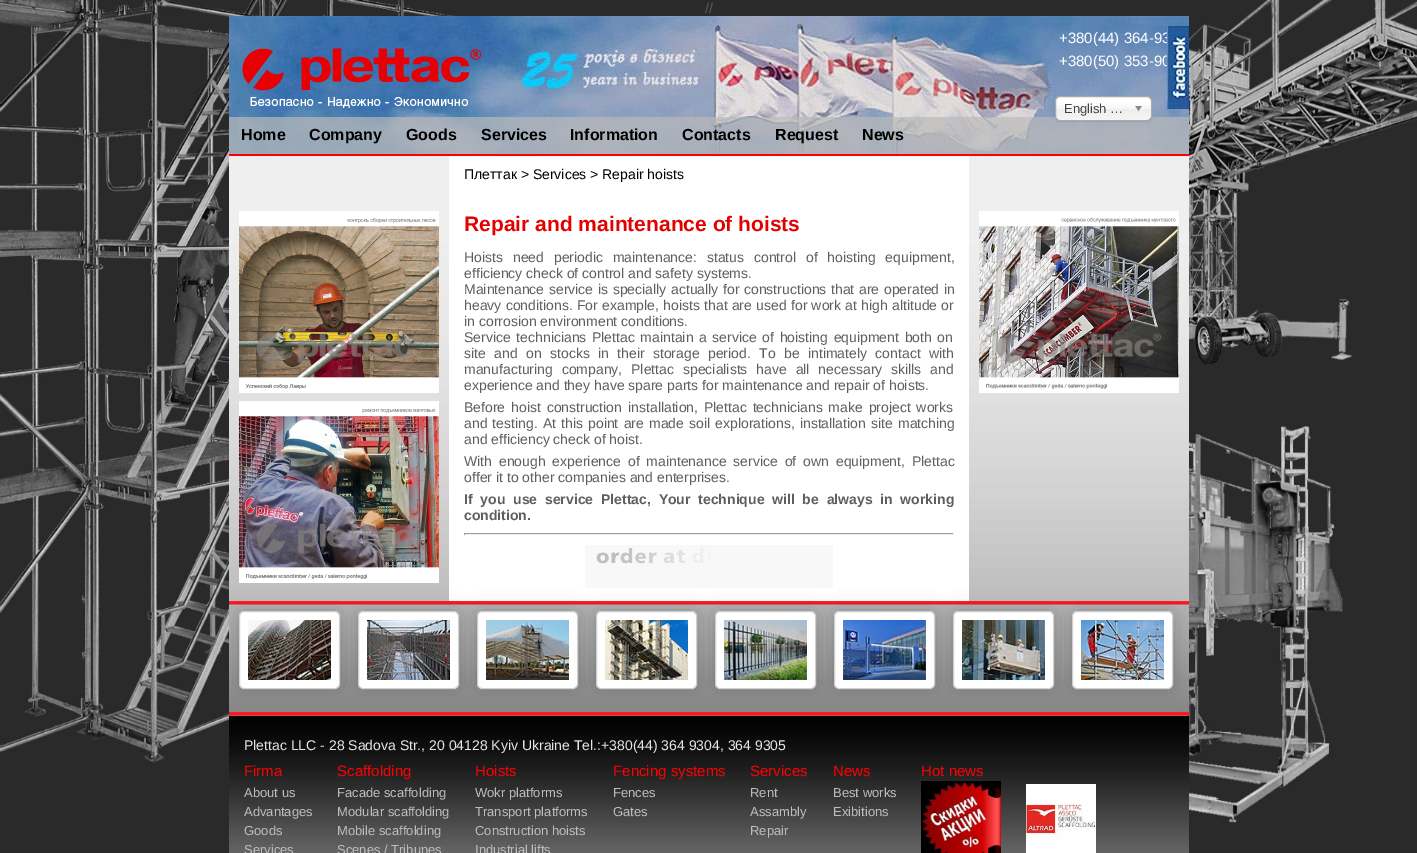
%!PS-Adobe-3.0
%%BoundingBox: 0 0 1417 853
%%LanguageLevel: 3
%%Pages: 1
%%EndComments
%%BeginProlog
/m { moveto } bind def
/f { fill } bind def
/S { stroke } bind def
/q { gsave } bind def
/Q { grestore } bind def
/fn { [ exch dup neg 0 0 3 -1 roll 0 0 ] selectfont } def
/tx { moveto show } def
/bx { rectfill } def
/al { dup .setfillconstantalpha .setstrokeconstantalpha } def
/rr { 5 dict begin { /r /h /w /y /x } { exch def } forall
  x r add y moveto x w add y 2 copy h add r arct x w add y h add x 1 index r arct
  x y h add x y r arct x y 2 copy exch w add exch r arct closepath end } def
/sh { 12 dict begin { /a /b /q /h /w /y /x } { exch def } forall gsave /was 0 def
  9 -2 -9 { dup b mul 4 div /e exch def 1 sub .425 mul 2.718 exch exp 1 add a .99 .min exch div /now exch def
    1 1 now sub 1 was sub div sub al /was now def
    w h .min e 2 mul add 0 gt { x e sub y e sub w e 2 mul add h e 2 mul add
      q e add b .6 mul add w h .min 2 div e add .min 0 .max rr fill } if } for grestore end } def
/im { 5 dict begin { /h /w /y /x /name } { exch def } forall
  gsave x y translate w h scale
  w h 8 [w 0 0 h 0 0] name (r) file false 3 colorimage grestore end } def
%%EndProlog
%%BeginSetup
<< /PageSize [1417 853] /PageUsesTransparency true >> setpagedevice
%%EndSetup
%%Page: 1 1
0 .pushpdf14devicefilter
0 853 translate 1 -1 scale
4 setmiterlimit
1 setgray
0 0 1417 853 bx
(image0.raw) 0 0 1417 853 im
/LiberationSans-Regular 14 fn
0.369 setgray
(//) 705 13 tx
(image1.raw) 229 16 960 138 im
(image2.raw) 242 48 239 60 im
/LiberationSans-Regular 15 fn
1 setgray
(+380\(44\) 364-93) 1059 43 tx
(+380\(50\) 353-90) 1059 66 tx
0.69 al
0.725 setgray
229 117 960 37 bx
1 al
0 setgray
1055 97 97 25 5 0.5 0.1 sh
q 1056 97 95 23 4 rr clip newpath
<< /ShadingType 2 /ColorSpace /DeviceRGB /Coords [1104 97 1104 120] /Extend [true true] /Function << /FunctionType 3 /Domain [0 1] /Functions [<< /FunctionType 2 /Domain [0 1] /C0 [1 1 1] /C1 [1 1 1] /N 1 >> << /FunctionType 2 /Domain [0 1] /C0 [1 1 1] /C1 [0.965 0.965 0.965] /N 1 >> << /FunctionType 2 /Domain [0 1] /C0 [0.965 0.965 0.965] /C1 [0.933 0.933 0.933] /N 1 >> << /FunctionType 2 /Domain [0 1] /C0 [0.933 0.933 0.933] /C1 [0.957 0.957 0.957] /N 1 >>] /Bounds [0.2 0.5 0.52] /Encode [0 1 0 1 0 1 0 1] >> >> shfill Q
0.667 setgray
1055.5 96.5 96 24 4.5 rr S
/LiberationSans-Regular 13 fn
0.267 setgray
(English …) 1064 113 tx
(image3.raw) 1135 106 7 6 im
(image4.raw) 1167 106 22 3 im
(image5.raw) 1167 26 22 80 im
1 0 0 setrgbcolor
229 154 960 2 bx
/LiberationSans-Bold 16 fn
0 setgray
(Home) 241 140 tx
(Company) 309 140 tx
(Goods) 406 140 tx
(Services) 481 140 tx
(Information) 570 140 tx
(Contacts) 682 140 tx
(Request) 775 140 tx
(News) 862 140 tx
(image6.raw) 229 156 960 445 im
1 setgray
449 156 520 445 bx
(image7.raw) 239 211 200 182 im
(image8.raw) 239 401 200 182 im
/LiberationSans-Regular 14 fn
0 setgray
(Плеттак > Services > Repair hoists) 464 179 tx
/LiberationSans-Bold 21 fn
0.898 0 0 setrgbcolor
(Repair and maintenance of hoists) 464 231 tx
/LiberationSans-Regular 14 fn
0.369 setgray
464 262 m 6 0 32 (Hoists need periodic maintenance: status control of hoisting equipment,) widthshow
(efficiency check of control and safety systems.) 464 278 tx
464 294 m 0.75 0 32 (Maintenance service is specially actually for constructions that are operated in) widthshow
464 310 m 0.4 0 32 (heavy conditions. For example, hoists that are used for work at high altitude or) widthshow
(in corrosion environment conditions.) 464 326 tx
464 342 m 1.75 0 32 (Service technicians Plettac maintain a service of hoisting equipment both on) widthshow
464 358 m 4.5 0 32 (site and on stocks in their storage period. To be intimately contact with) widthshow
464 374 m 5 0 32 (manufacturing company, Plettac specialists have all necessary skills and) widthshow
(experience and they have spare parts for maintenance and repair of hoists.) 464 390 tx
464 412 m 2 0 32 (Before hoist construction installation, Plettac technicians make project works) widthshow
464 428 m 1.25 0 32 (and testing. At this point are made soil explorations, installation site matching) widthshow
(and efficiency check of hoist.) 464 444 tx
464 466 m 3 0 32 (With enough experience of maintenance service of own equipment, Plettac) widthshow
(offer it to other companies and enterprises.) 464 482 tx
/LiberationSans-Bold 14 fn
464 504 m 3.9 0 32 (If you use service Plettac, Your technique will be always in working) widthshow
(condition.) 464 520 tx
0.624 setgray
464 533 490 1 bx
0.933 setgray
953 533 1 2 bx
464 534 490 1 bx
0.624 setgray
464 533 1 2 bx
(image9.raw) 585 545 248 43 im
(image10.raw) 979 211 200 182 im
(image11.raw) 229 601 960 115 im
q
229 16 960 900 rectclip
0 setgray
239 611 101 78 5 10 0.2 sh
Q
1 setgray
239.5 611.5 100 77 4.5 rr q f Q
0.816 setgray
S
(image12.raw) 248 620 83 60 im
0 setgray
358 611 101 78 5 10 0.2 sh
1 setgray
358.5 611.5 100 77 4.5 rr q f Q
0.816 setgray
S
(image13.raw) 367 620 83 60 im
0 setgray
477 611 101 78 5 10 0.2 sh
1 setgray
477.5 611.5 100 77 4.5 rr q f Q
0.816 setgray
S
(image14.raw) 486 620 83 60 im
0 setgray
596 611 101 78 5 10 0.2 sh
1 setgray
596.5 611.5 100 77 4.5 rr q f Q
0.816 setgray
S
(image15.raw) 605 620 83 60 im
0 setgray
715 611 101 78 5 10 0.2 sh
1 setgray
715.5 611.5 100 77 4.5 rr q f Q
0.816 setgray
S
(image16.raw) 724 620 83 60 im
0 setgray
834 611 101 78 5 10 0.2 sh
1 setgray
834.5 611.5 100 77 4.5 rr q f Q
0.816 setgray
S
(image17.raw) 843 620 83 60 im
0 setgray
953 611 101 78 5 10 0.2 sh
1 setgray
953.5 611.5 100 77 4.5 rr q f Q
0.816 setgray
S
(image18.raw) 962 620 83 60 im
0 setgray
1072 611 101 78 5 10 0.2 sh
1 setgray
1072.5 611.5 100 77 4.5 rr q f Q
0.816 setgray
S
(image19.raw) 1081 620 83 60 im
(image20.raw) 229 716 960 137 im
/LiberationSans-Regular 14 fn
0.902 setgray
(Plettac LLC - 28 Sadova Str., 20 04128 Kyiv Ukraine Tel.:+380\(44\) 364 9304, 364 9305) 244 750 tx
/LiberationSans-Regular 15 fn
1 0 0 setrgbcolor
(Firma) 244 776 tx
/LiberationSans-Regular 13 fn
0.741 setgray
(About us) 244 797 tx
(Advantages) 244 816 tx
(Goods) 244 835 tx
(Services) 244 854 tx
/LiberationSans-Regular 15 fn
1 0 0 setrgbcolor
(Scaffolding) 337 776 tx
/LiberationSans-Regular 13 fn
0.741 setgray
(Facade scaffolding) 337 797 tx
(Modular scaffolding) 337 816 tx
(Mobile scaffolding) 337 835 tx
(Scenes / Tribunes) 337 854 tx
/LiberationSans-Regular 15 fn
1 0 0 setrgbcolor
(Hoists) 475 776 tx
/LiberationSans-Regular 13 fn
0.741 setgray
(Wokr platforms) 475 797 tx
(Transport platforms) 475 816 tx
(Construction hoists) 475 835 tx
(Industrial lifts) 475 854 tx
/LiberationSans-Regular 15 fn
1 0 0 setrgbcolor
(Fencing systems) 613 776 tx
/LiberationSans-Regular 13 fn
0.741 setgray
(Fences) 613 797 tx
(Gates) 613 816 tx
/LiberationSans-Regular 15 fn
1 0 0 setrgbcolor
(Services) 750 776 tx
/LiberationSans-Regular 13 fn
0.741 setgray
(Rent) 750 797 tx
(Assambly) 750 816 tx
(Repair) 750 835 tx
/LiberationSans-Regular 15 fn
1 0 0 setrgbcolor
(News) 833 776 tx
/LiberationSans-Regular 13 fn
0.741 setgray
(Best works) 833 797 tx
(Exibitions) 833 816 tx
/LiberationSans-Regular 15 fn
1 0 0 setrgbcolor
(Hot news) 921 776 tx
(image21.raw) 921 781 80 72 im
(image22.raw) 1026 784 70 69 im
.poppdf14devicefilter showpage
%%EOF
